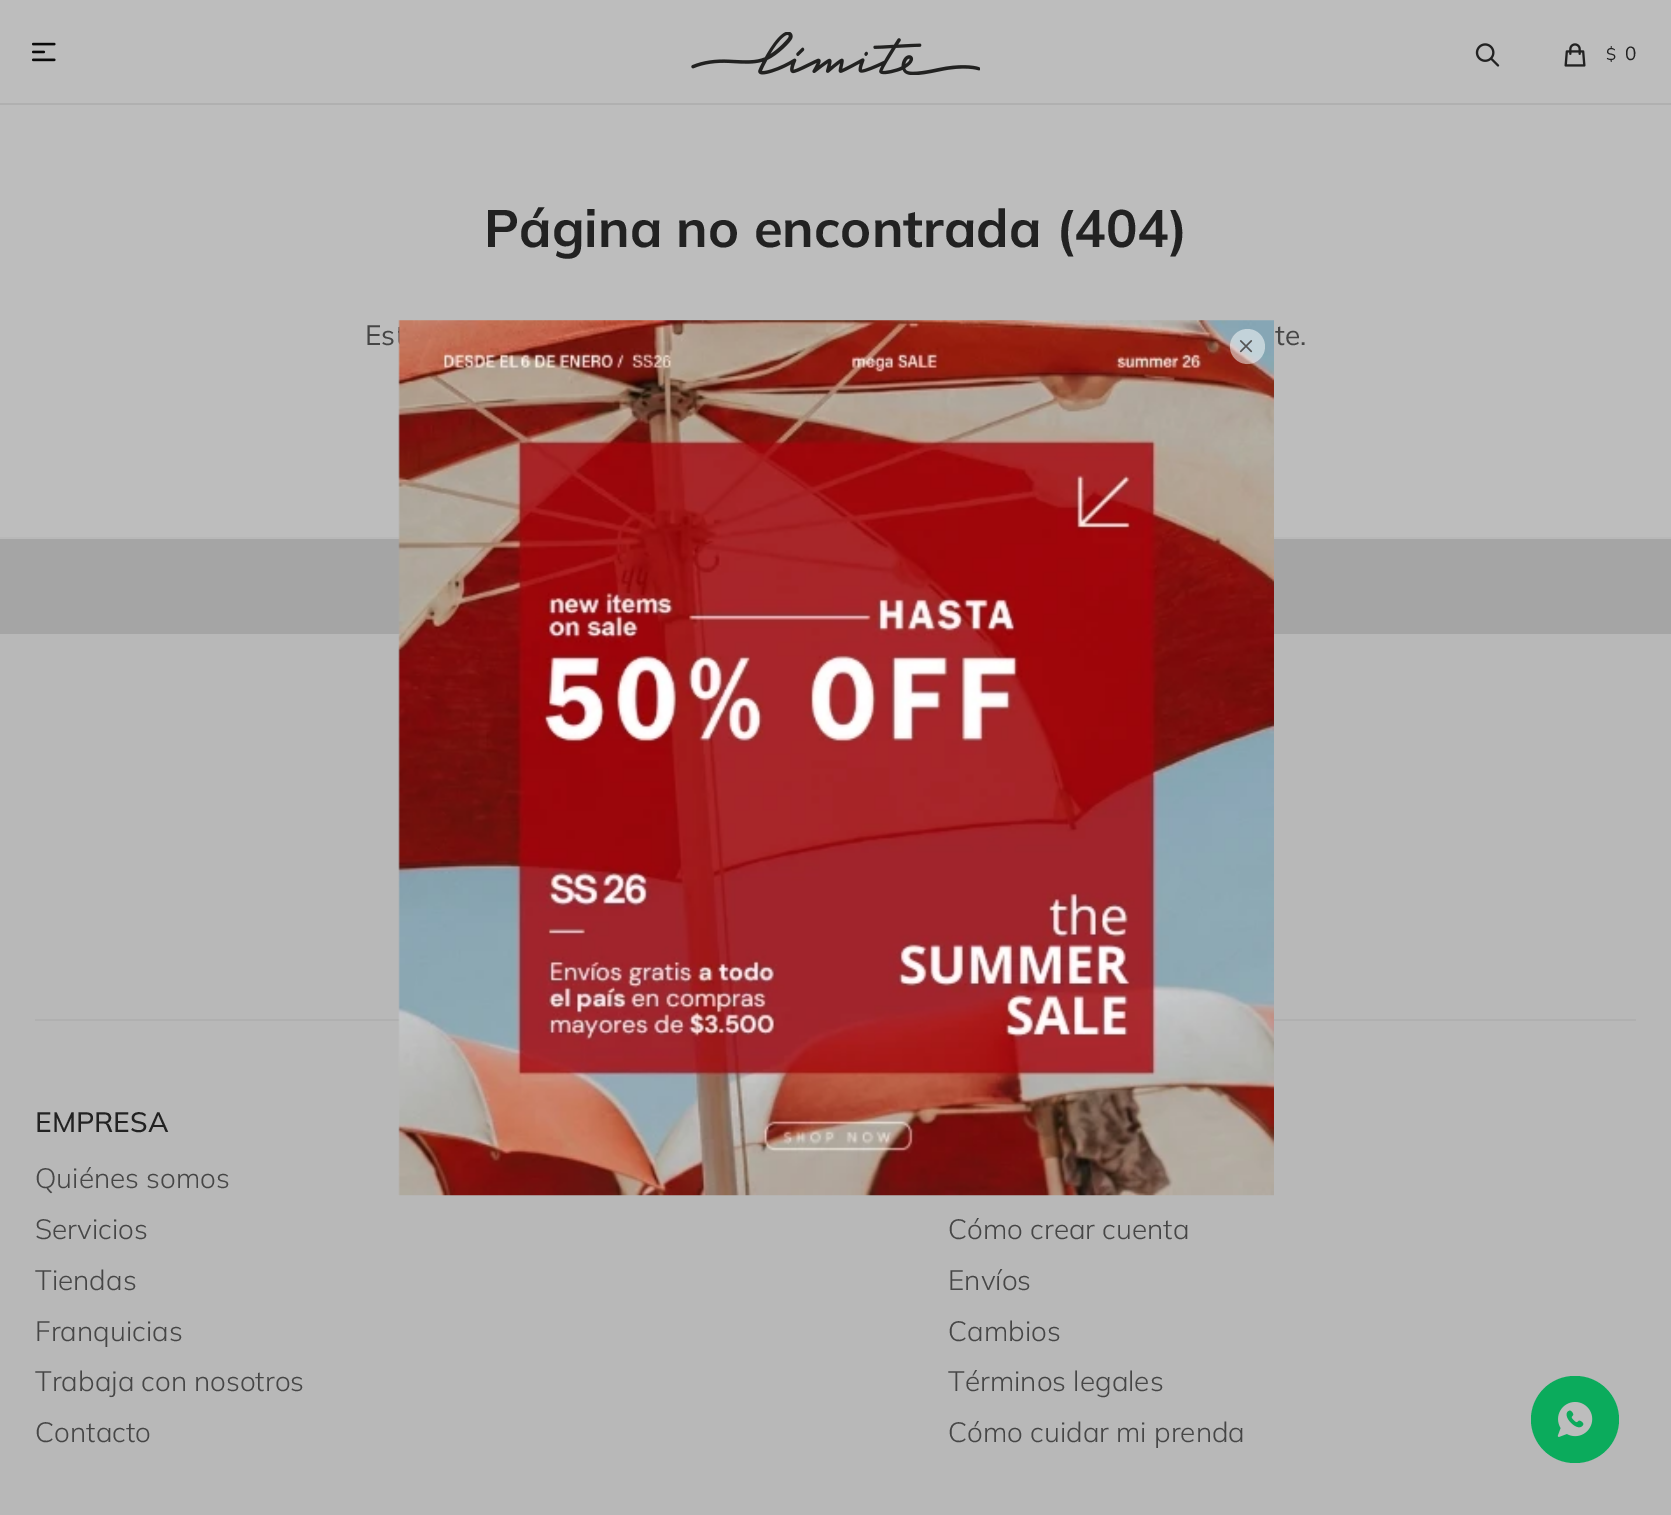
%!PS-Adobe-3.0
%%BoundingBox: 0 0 1671 1515
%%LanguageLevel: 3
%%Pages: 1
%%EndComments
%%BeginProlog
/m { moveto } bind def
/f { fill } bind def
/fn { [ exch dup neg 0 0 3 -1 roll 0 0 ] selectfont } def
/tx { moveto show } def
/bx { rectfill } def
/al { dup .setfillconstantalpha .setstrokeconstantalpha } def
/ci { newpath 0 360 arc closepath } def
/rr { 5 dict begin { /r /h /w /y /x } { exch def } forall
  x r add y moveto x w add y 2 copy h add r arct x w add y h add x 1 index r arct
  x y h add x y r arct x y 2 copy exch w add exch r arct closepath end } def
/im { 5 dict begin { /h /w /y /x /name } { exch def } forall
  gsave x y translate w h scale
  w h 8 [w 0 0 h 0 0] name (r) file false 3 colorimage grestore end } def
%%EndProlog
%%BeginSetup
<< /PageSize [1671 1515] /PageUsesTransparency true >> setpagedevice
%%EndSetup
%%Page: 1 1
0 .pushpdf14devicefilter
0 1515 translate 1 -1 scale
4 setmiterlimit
0.741 setgray
0 0 1671 1515 bx
(image0.raw) 32 42 24 20 im
(image1.raw) 691 32 289 43 im
(image2.raw) 1475 43 25 24 im
(image3.raw) 1564 43 22 24 im
/Mulish-Regular 17 fn
0.133 setgray
1606 60 m 2 0 ($) ashow
/Mulish-Regular 19 fn
(0) 1625 60 tx
0.69 setgray
0 103 1671 2 bx
/Mulish-Bold 52.5 fn
0.133 setgray
(Página no encontrada \(404\)) 484 247 tx
/Mulish-Regular 28 fn
0.275 setgray
(Es) 365 345 tx
(te.) 1275 345 tx
0.722 setgray
0 537 1671 978 bx
0.647 setgray
0 539 1671 95 bx
0.69 setgray
35 1019 1601 2 bx
/Mulish-Medium 28 fn
0.133 setgray
(EMPRESA) 35 1132 tx
/Mulish-Light 28 fn
0.275 setgray
(Quiénes somos) 35 1188 tx
(Servicios) 35 1239 tx
(Tiendas) 35 1290 tx
(Franquicias) 35 1341 tx
(Trabaja con nosotros) 35 1391 tx
(Contacto) 35 1442 tx
(Cómo crear cuenta) 948 1239 tx
(Envíos) 948 1290 tx
(Cambios) 948 1341 tx
(Términos legales) 948 1391 tx
(Cómo cuidar mi prenda) 948 1442 tx
(image4.raw) 398 320 876 876 im
0.5 al
1 setgray
1247.5 346.5 17.5 ci f
1 al
(image5.raw) 1239 340 14 13 im
0.043 0.671 0.361 setrgbcolor
1531 1376 88 87 43.5 rr f
(image6.raw) 1557 1402 36 35 im
.poppdf14devicefilter showpage
%%EOF
